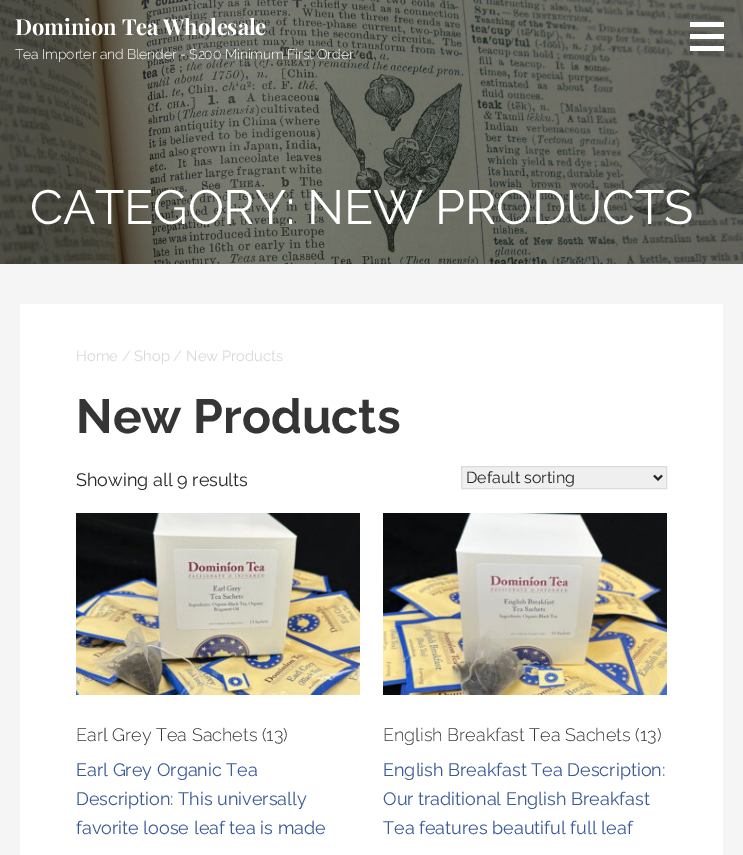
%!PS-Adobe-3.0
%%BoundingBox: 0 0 743 855
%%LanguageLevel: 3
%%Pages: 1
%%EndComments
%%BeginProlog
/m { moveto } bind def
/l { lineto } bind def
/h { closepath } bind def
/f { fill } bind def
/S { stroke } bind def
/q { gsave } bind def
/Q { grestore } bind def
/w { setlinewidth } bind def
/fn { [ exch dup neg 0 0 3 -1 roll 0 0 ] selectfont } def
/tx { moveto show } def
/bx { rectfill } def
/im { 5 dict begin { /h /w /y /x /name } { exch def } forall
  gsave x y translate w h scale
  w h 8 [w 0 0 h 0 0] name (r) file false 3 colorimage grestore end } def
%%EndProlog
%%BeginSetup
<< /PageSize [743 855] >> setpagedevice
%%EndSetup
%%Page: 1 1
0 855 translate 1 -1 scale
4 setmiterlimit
0.961 setgray
0 0 743 855 bx
(image0.raw) 0 0 743 264 im
/PlayfairDisplay-Bold 22 fn
1 setgray
15 35 m -0.15 0 (Dominion Tea Wholesale) ashow
/Raleway-Light 14 fn
15 59 m -0.15 0 (Tea Importer and Blender - $200 Minimum First Order) ashow
690 22 34 5 bx
690 34 34 5 bx
690 46 34 5 bx
/Raleway-Regular 48 fn
30 224 m -0.15 0 (CATEGORY: NEW PRODUCTS) ashow
20 304 703 551 bx
/Raleway-Regular 14.75 fn
0.847 setgray
(Home / Shop / New Products) 76 361 tx
/Raleway-Bold 48 fn
0.208 setgray
(New Products) 76 433 tx
/Raleway-Regular 18 fn
0.145 setgray
(Showing all 9 results) 76 486 tx
0.937 setgray
461.5 466.5 m 666.5 466.5 l 666.5 488.5 l 461.5 488.5 l h q f Q
0.859 setgray
S
0.145 setgray
2 w
654 475.5 m 658 479.5 l 662 475.5 l S
/Raleway-Regular 16 fn
(Default sorting) 466 483 tx
(image1.raw) 76 513 284 182 im
/Raleway-Light 18 fn
0.208 setgray
(Earl Grey Tea Sachets \(13\)) 76 741 tx
/Raleway-Regular 18 fn
0.224 0.353 0.6 setrgbcolor
(Earl Grey Organic Tea) 76 776 tx
(Description: This universally) 76 805 tx
(favorite loose leaf tea is made) 76 834 tx
(image2.raw) 383 513 284 182 im
/Raleway-Light 18 fn
0.208 setgray
(English Breakfast Tea Sachets \(13\)) 383 741 tx
/Raleway-Regular 18 fn
0.224 0.353 0.6 setrgbcolor
(English Breakfast Tea Description:) 383 776 tx
(Our traditional English Breakfast) 383 805 tx
(Tea features beautiful full leaf) 383 834 tx
showpage
%%EOF
